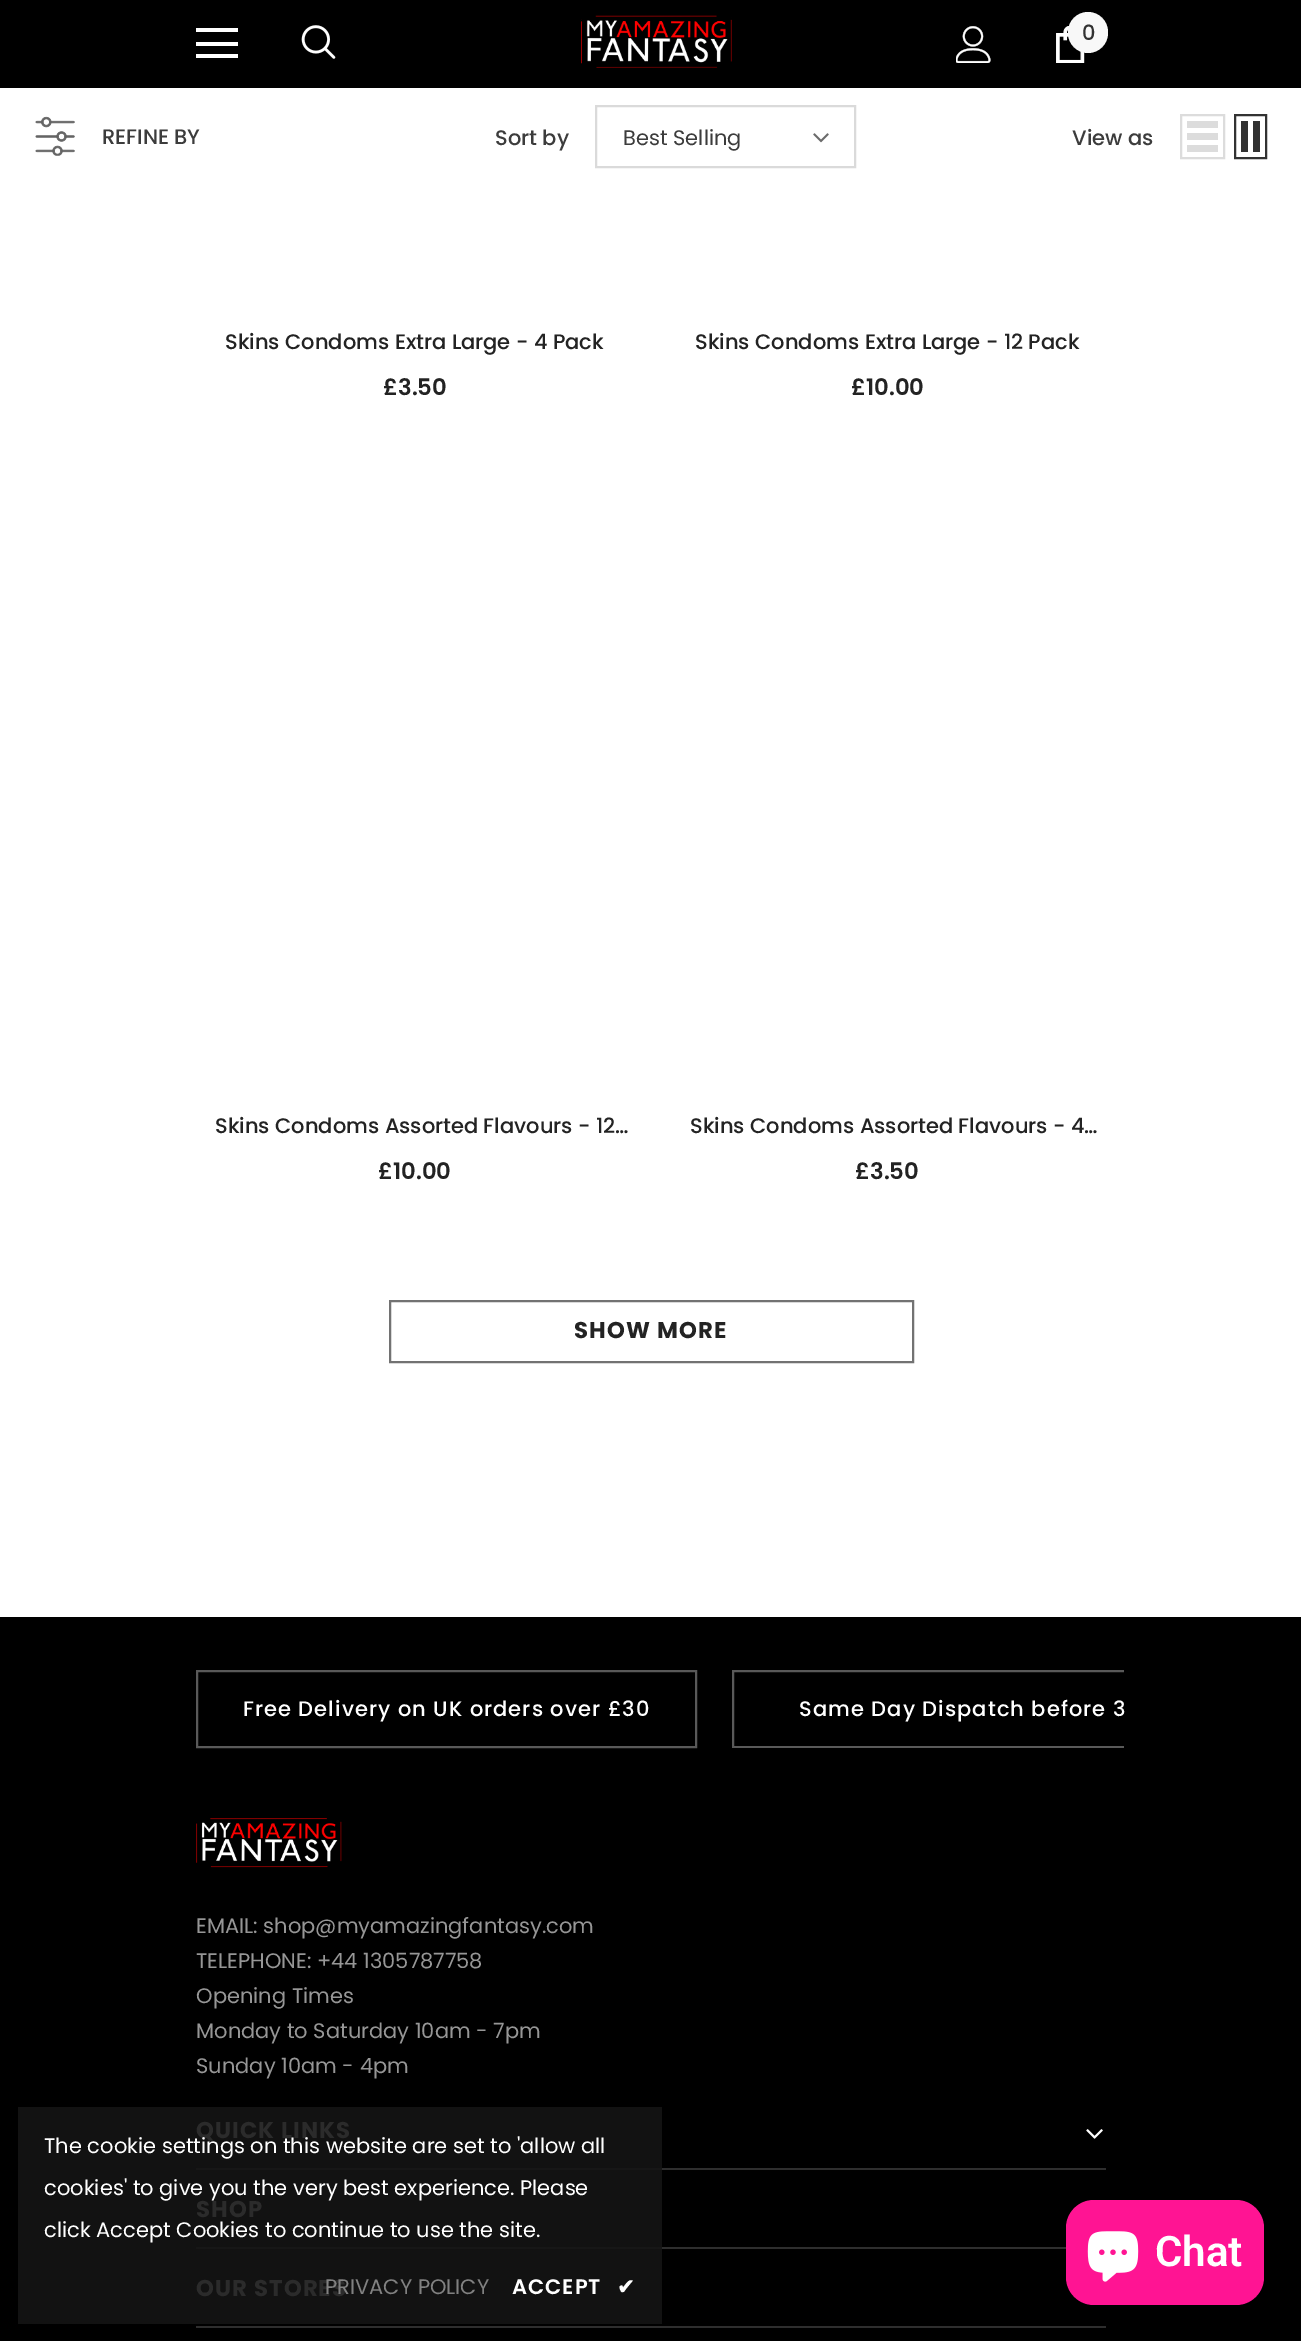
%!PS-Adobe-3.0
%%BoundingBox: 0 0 1301 2341
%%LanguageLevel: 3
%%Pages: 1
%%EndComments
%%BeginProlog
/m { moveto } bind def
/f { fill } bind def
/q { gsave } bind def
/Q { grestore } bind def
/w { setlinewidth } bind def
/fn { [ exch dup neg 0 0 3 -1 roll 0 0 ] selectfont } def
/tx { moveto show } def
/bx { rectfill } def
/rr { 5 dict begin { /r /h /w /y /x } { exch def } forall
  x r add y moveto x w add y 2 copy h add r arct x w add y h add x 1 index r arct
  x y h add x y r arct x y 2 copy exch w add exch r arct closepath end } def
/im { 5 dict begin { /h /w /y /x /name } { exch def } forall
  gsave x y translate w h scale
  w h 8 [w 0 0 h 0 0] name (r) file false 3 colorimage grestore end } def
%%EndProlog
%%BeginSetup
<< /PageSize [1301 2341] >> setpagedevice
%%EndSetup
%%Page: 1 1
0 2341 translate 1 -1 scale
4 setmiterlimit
1 setgray
0 0 1301 2341 bx
0 setgray
0 0 1301 88 bx
1 setgray
196 28 42 4 bx
196 42 42 4 bx
196 54 42 4 bx
(image0.raw) 301 25 35 34 im
(image1.raw) 580 15 152 53 im
(image2.raw) 956 26 35 37 im
(image3.raw) 1056 26 29 37 im
0.973 setgray
1068 12 40 41 20 rr f
/Poppins-Medium 21 fn
0.196 setgray
(0) 1082 40 tx
(image4.raw) 35 116 40 40 im
0.235 setgray
(REFINE BY) 102 144 tx
(Sort by) 495 145 tx
0.855 setgray
2 w
596 106 259 61 rectstroke
/Poppins-Regular 21 fn
0.235 setgray
(Best Selling) 623 145 tx
(image5.raw) 813 133 16 10 im
/Poppins-Medium 21 fn
(View as) 1072 145 tx
0.863 setgray
1181 115 43 43 rectstroke
1187 145 31 7 bx
1187 133 31 7 bx
1187 121 31 7 bx
0.196 setgray
1235 115 31 43 rectstroke
1253 121 7 31 bx
1241 121 7 31 bx
0.137 setgray
(Skins Condoms Extra Large - 4 Pack) 225 349 tx
/Poppins-SemiBold 22.75 fn
(£3.50) 383 395 tx
/Poppins-Medium 21 fn
(Skins Condoms Extra Large - 12 Pack) 695 349 tx
/Poppins-SemiBold 22.75 fn
(£10.00) 851 395 tx
/Poppins-Medium 21 fn
(Skins Condoms Assorted Flavours - 12…) 215 1133 tx
/Poppins-SemiBold 22.75 fn
(£10.00) 378 1179 tx
/Poppins-Medium 21 fn
(Skins Condoms Assorted Flavours - 4…) 690 1133 tx
/Poppins-SemiBold 22.75 fn
(£3.50) 855 1179 tx
0.447 setgray
390 1301 523 61 rectstroke
/Poppins-Bold 22.75 fn
0.137 setgray
574 1338 m 1.1 0 (SHOW MORE) ashow
0 setgray
0 1617 1301 724 bx
0.071 setgray
18 2107 644 217 bx
0.349 setgray
197 1671 499 76 rectstroke
/Poppins-Medium 21 fn
1 setgray
243 1716 m 1.05 0 (Free Delivery on UK orders over £30) ashow
q
179 1670 945 78 rectclip
0.349 setgray
733 1671 498 76 rectstroke
Q
799 1716 m 1.05 0 (Same Day Dispatch before 3) ashow
(image6.raw) 196 1818 146 50 im
/Poppins-Regular 21 fn
0.588 setgray
(EMAIL: shop@myamazingfantasy.com) 196 1933 tx
(TELEPHONE: +44 1305787758) 196 1968 tx
(Opening Times) 196 2003 tx
(Monday to Saturday 10am - 7pm) 196 2038 tx
(Sunday 10am - 4pm) 196 2073 tx
0.18 setgray
662 2168 444 2 bx
0.09 setgray
196 2168 466 2 bx
/Poppins-Bold 22.75 fn
0.169 setgray
196 2138 m 1.1 0 (QUICK LINKS) ashow
(image7.raw) 1086 2129 17 10 im
0.18 setgray
662 2247 404 2 bx
0.09 setgray
196 2247 466 2 bx
0.169 setgray
196 2217 m 1.1 0 (SHOP) ashow
0.18 setgray
196 2326 910 2 bx
0.169 setgray
196 2296 m 1.1 0 (OUR STORES) ashow
/Poppins-Regular 21 fn
1 setgray
(The cookie settings on this website are set to 'allow all) 44 2153 tx
(cookies' to give you the very best experience. Please) 44 2195 tx
(click Accept Cookies to continue to use the site.) 44 2237 tx
0.506 setgray
(PRIVACY POLICY) 325 2294 tx
/Poppins-SemiBold 21 fn
1 setgray
512 2294 m 1.05 0 (ACCEPT) ashow
/DejaVuSans-Bold 21 fn
617 2294 m 1.05 0 (✔) ashow
1 0.078 0.576 setrgbcolor
1066 2200 198 105 28 rr f
(image8.raw) 1087 2231 52 51 im
/Roboto-SemiBold 42 fn
1 setgray
(Chat) 1155 2266 tx
showpage
%%EOF
